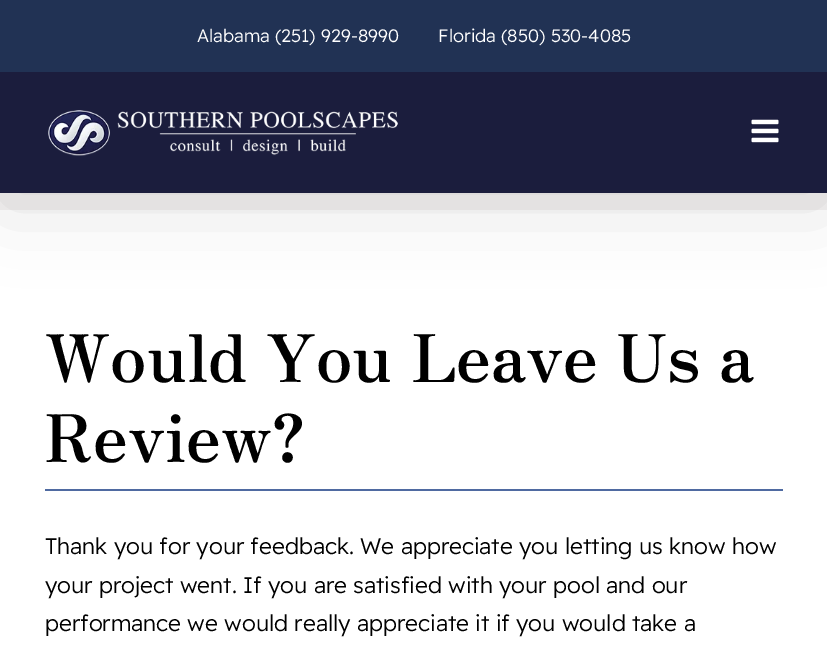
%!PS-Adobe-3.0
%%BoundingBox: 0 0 827 654
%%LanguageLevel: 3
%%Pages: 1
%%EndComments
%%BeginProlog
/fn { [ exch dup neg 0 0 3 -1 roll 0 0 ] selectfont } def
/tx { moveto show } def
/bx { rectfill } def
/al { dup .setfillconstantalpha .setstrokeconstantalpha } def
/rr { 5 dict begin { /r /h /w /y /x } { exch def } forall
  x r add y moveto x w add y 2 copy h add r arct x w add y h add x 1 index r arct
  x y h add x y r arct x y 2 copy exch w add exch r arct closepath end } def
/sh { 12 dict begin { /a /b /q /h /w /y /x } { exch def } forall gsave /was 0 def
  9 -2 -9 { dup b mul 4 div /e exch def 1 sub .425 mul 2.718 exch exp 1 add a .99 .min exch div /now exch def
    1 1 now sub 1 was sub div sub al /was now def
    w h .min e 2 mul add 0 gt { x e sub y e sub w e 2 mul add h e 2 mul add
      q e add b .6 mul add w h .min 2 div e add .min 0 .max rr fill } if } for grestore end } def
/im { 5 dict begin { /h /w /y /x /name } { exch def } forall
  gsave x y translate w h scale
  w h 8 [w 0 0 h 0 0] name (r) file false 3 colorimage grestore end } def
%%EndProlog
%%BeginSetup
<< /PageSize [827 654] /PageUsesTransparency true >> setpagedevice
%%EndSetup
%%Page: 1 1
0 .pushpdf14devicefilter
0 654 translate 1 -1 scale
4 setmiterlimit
1 setgray
0 0 827 654 bx
0.957 0.949 0.949 setrgbcolor
0 193 827 17 bx
0 setgray
3 18 822 186 0 37.5 0.14 sh
0.129 0.196 0.329 setrgbcolor
0 0 827 72 bx
0.106 0.114 0.239 setrgbcolor
0 72 827 121 bx
/ReadexPro-Light 18 fn
1 setgray
(Alabama \(251\) 929-8990) 197 42 tx
(Florida \(850\) 530-4085) 438 42 tx
(image0.raw) 48 110 350 46 im
(image1.raw) 751 119 28 24 im
/ZenAntique-Regular 66 fn
0 setgray
(Would You Leave Us a) 45 382 tx
(Review?) 45 462 tx
0.31 0.416 0.631 setrgbcolor
45 489 738 2 bx
/ReadexPro-Light 22.5 fn
0 setgray
(Thank you for your feedback. We appreciate you letting us know how) 45 554 tx
(your project went. If you are satisfied with your pool and our) 45 593 tx
(performance we would really appreciate it if you would take a) 45 631 tx
.poppdf14devicefilter showpage
%%EOF
